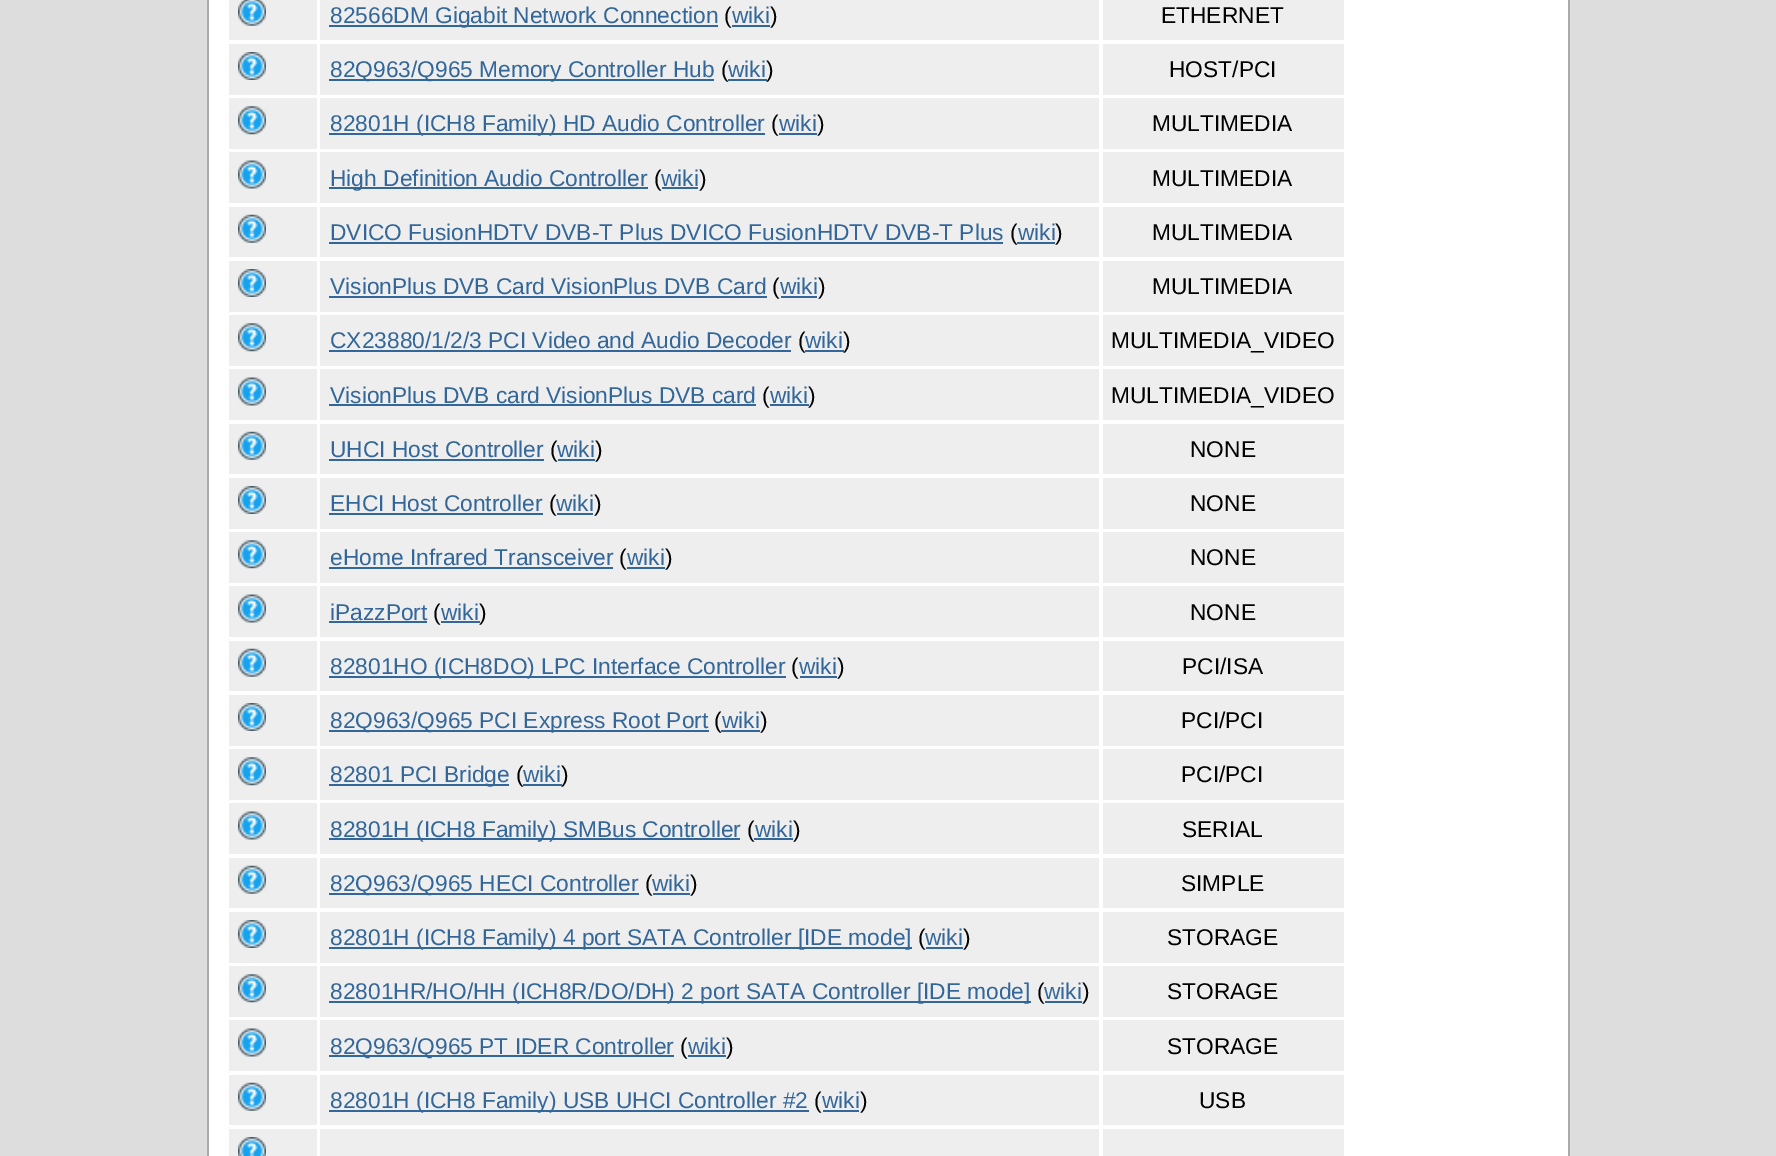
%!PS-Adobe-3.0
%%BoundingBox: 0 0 1776 1156
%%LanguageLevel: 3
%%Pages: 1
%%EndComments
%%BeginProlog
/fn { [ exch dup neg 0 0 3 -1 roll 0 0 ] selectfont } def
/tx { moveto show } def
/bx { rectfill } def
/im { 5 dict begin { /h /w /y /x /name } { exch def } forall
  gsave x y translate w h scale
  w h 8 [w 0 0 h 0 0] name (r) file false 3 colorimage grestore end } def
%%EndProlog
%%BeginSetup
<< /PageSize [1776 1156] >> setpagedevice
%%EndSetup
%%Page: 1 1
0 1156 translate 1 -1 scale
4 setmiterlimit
0.867 setgray
0 0 1776 1156 bx
1 setgray
209 0 1359 1156 bx
0.667 setgray
1568 0 2 1156 bx
207 0 2 1156 bx
0.933 setgray
229 0 88 40 bx
(image0.raw) 238 0 28 26 im
320 0 779 40 bx
0.2 0.4 0.6 setrgbcolor
329 25 389 2 bx
/LiberationSans-Regular 22.75 fn
(82566DM Gigabit Network Connection) 330 23 tx
0 setgray
(\() 724 23 tx
0.2 0.4 0.6 setrgbcolor
(wiki) 732 23 tx
732 25 38 2 bx
0 setgray
(\)) 770 23 tx
0.933 setgray
1103 0 241 40 bx
0 setgray
(ETHERNET) 1161 23 tx
0.933 setgray
229 44 88 51 bx
(image1.raw) 238 52 28 28 im
320 44 779 51 bx
0.2 0.4 0.6 setrgbcolor
329 79 385 2 bx
(82Q963/Q965 Memory Controller Hub) 330 77 tx
0 setgray
(\() 721 77 tx
0.2 0.4 0.6 setrgbcolor
(wiki) 728 77 tx
728 79 39 2 bx
0 setgray
(\)) 766 77 tx
0.933 setgray
1103 44 241 51 bx
0 setgray
(HOST/PCI) 1169 77 tx
0.933 setgray
229 98 88 51 bx
(image2.raw) 238 106 28 29 im
320 98 779 51 bx
0.2 0.4 0.6 setrgbcolor
329 133 436 2 bx
(82801H \(ICH8 Family\) HD Audio Controller) 330 131 tx
0 setgray
(\() 771 131 tx
0.2 0.4 0.6 setrgbcolor
(wiki) 779 131 tx
779 133 38 2 bx
0 setgray
(\)) 817 131 tx
0.933 setgray
1103 98 241 51 bx
0 setgray
(MULTIMEDIA) 1152 131 tx
0.933 setgray
229 152 88 51 bx
(image3.raw) 238 160 28 29 im
320 152 779 51 bx
0.2 0.4 0.6 setrgbcolor
329 187 319 2 bx
(High Definition Audio Controller) 330 186 tx
0 setgray
(\() 654 186 tx
0.2 0.4 0.6 setrgbcolor
(wiki) 661 186 tx
662 187 36 2 bx
0 setgray
(\)) 699 186 tx
0.933 setgray
1103 152 241 51 bx
0 setgray
(MULTIMEDIA) 1152 186 tx
0.933 setgray
229 207 88 50 bx
(image4.raw) 238 214 28 29 im
320 207 779 50 bx
0.2 0.4 0.6 setrgbcolor
(DVICO FusionHDTV DVB-T Plus DVICO FusionHDTV DVB-T Plus) 330 240 tx
329 242 674 2 bx
0 setgray
(\() 1010 240 tx
0.2 0.4 0.6 setrgbcolor
(wiki) 1018 240 tx
1017 242 38 2 bx
0 setgray
(\)) 1055 240 tx
0.933 setgray
1103 207 241 50 bx
0 setgray
(MULTIMEDIA) 1152 240 tx
0.933 setgray
229 261 88 51 bx
(image1.raw) 238 269 28 28 im
320 261 779 51 bx
0.2 0.4 0.6 setrgbcolor
(VisionPlus DVB Card VisionPlus DVB Card) 330 294 tx
329 296 438 2 bx
0 setgray
(\() 772 294 tx
0.2 0.4 0.6 setrgbcolor
(wiki) 780 294 tx
781 296 36 2 bx
0 setgray
(\)) 818 294 tx
0.933 setgray
1103 261 241 51 bx
0 setgray
(MULTIMEDIA) 1152 294 tx
0.933 setgray
229 315 88 51 bx
(image2.raw) 238 323 28 29 im
320 315 779 51 bx
0.2 0.4 0.6 setrgbcolor
(CX23880/1/2/3 PCI Video and Audio Decoder) 330 348 tx
329 350 462 2 bx
0 setgray
(\() 798 348 tx
0.2 0.4 0.6 setrgbcolor
(wiki) 805 348 tx
805 350 39 2 bx
0 setgray
(\)) 843 348 tx
0.933 setgray
1103 315 241 51 bx
0 setgray
(MULTIMEDIA_VIDEO) 1111 348 tx
0.933 setgray
229 369 88 51 bx
(image3.raw) 238 377 28 29 im
320 369 779 51 bx
0.2 0.4 0.6 setrgbcolor
(VisionPlus DVB card VisionPlus DVB card) 330 403 tx
329 404 427 2 bx
0 setgray
(\() 762 403 tx
0.2 0.4 0.6 setrgbcolor
(wiki) 770 403 tx
770 404 39 2 bx
0 setgray
(\)) 808 403 tx
0.933 setgray
1103 369 241 51 bx
0 setgray
(MULTIMEDIA_VIDEO) 1111 403 tx
0.933 setgray
229 424 88 50 bx
(image4.raw) 238 431 28 29 im
320 424 779 50 bx
0.2 0.4 0.6 setrgbcolor
(UHCI Host Controller) 330 457 tx
329 459 215 2 bx
0 setgray
(\() 550 457 tx
0.2 0.4 0.6 setrgbcolor
(wiki) 557 457 tx
558 459 37 2 bx
0 setgray
(\)) 595 457 tx
0.933 setgray
1103 424 241 50 bx
0 setgray
(NONE) 1190 457 tx
0.933 setgray
229 478 88 51 bx
(image1.raw) 238 486 28 28 im
320 478 779 51 bx
0.2 0.4 0.6 setrgbcolor
(EHCI Host Controller) 330 511 tx
329 513 214 2 bx
0 setgray
(\() 549 511 tx
0.2 0.4 0.6 setrgbcolor
(wiki) 556 511 tx
557 513 36 2 bx
0 setgray
(\)) 594 511 tx
0.933 setgray
1103 478 241 51 bx
0 setgray
(NONE) 1190 511 tx
0.933 setgray
229 532 88 51 bx
(image2.raw) 238 540 28 29 im
320 532 779 51 bx
0.2 0.4 0.6 setrgbcolor
(eHome Infrared Transceiver) 330 565 tx
329 567 284 2 bx
0 setgray
(\() 619 565 tx
0.2 0.4 0.6 setrgbcolor
(wiki) 627 565 tx
627 567 38 2 bx
0 setgray
(\)) 665 565 tx
0.933 setgray
1103 532 241 51 bx
0 setgray
(NONE) 1190 565 tx
0.933 setgray
229 586 88 51 bx
(image3.raw) 238 594 28 29 im
320 586 779 51 bx
0.2 0.4 0.6 setrgbcolor
(iPazzPort) 330 620 tx
329 621 98 2 bx
0 setgray
(\() 433 620 tx
0.2 0.4 0.6 setrgbcolor
(wiki) 441 620 tx
441 621 39 2 bx
0 setgray
(\)) 479 620 tx
0.933 setgray
1103 586 241 51 bx
0 setgray
(NONE) 1190 620 tx
0.933 setgray
229 641 88 50 bx
(image4.raw) 238 648 28 29 im
320 641 779 50 bx
0.2 0.4 0.6 setrgbcolor
329 676 457 2 bx
(82801HO \(ICH8DO\) LPC Interface Controller) 330 674 tx
0 setgray
(\() 791 674 tx
0.2 0.4 0.6 setrgbcolor
(wiki) 799 674 tx
800 676 37 2 bx
0 setgray
(\)) 837 674 tx
0.933 setgray
1103 641 241 50 bx
0 setgray
(PCI/ISA) 1182 674 tx
0.933 setgray
229 695 88 51 bx
(image1.raw) 238 703 28 28 im
320 695 779 51 bx
0.2 0.4 0.6 setrgbcolor
329 730 380 2 bx
(82Q963/Q965 PCI Express Root Port) 330 728 tx
0 setgray
(\() 714 728 tx
0.2 0.4 0.6 setrgbcolor
(wiki) 722 728 tx
721 730 39 2 bx
0 setgray
(\)) 760 728 tx
0.933 setgray
1103 695 241 51 bx
0 setgray
(PCI/PCI) 1181 728 tx
0.933 setgray
229 749 88 51 bx
(image2.raw) 238 757 28 29 im
320 749 779 51 bx
0.2 0.4 0.6 setrgbcolor
329 784 180 2 bx
(82801 PCI Bridge) 330 782 tx
0 setgray
(\() 516 782 tx
0.2 0.4 0.6 setrgbcolor
(wiki) 523 782 tx
523 784 39 2 bx
0 setgray
(\)) 561 782 tx
0.933 setgray
1103 749 241 51 bx
0 setgray
(PCI/PCI) 1181 782 tx
0.933 setgray
229 803 88 51 bx
(image3.raw) 238 811 28 29 im
320 803 779 51 bx
0.2 0.4 0.6 setrgbcolor
329 838 411 2 bx
(82801H \(ICH8 Family\) SMBus Controller) 330 837 tx
0 setgray
(\() 747 837 tx
0.2 0.4 0.6 setrgbcolor
(wiki) 755 837 tx
754 838 39 2 bx
0 setgray
(\)) 793 837 tx
0.933 setgray
1103 803 241 51 bx
0 setgray
(SERIAL) 1182 837 tx
0.933 setgray
229 858 88 50 bx
(image4.raw) 238 865 28 29 im
320 858 779 50 bx
0.2 0.4 0.6 setrgbcolor
329 893 310 2 bx
(82Q963/Q965 HECI Controller) 330 891 tx
0 setgray
(\() 645 891 tx
0.2 0.4 0.6 setrgbcolor
(wiki) 652 891 tx
653 893 37 2 bx
0 setgray
(\)) 690 891 tx
0.933 setgray
1103 858 241 50 bx
0 setgray
(SIMPLE) 1181 891 tx
0.933 setgray
229 912 88 51 bx
(image1.raw) 238 920 28 28 im
320 912 779 51 bx
0.2 0.4 0.6 setrgbcolor
329 947 583 2 bx
(82801H \(ICH8 Family\) 4 port SATA Controller [IDE mode]) 330 945 tx
0 setgray
(\() 918 945 tx
0.2 0.4 0.6 setrgbcolor
(wiki) 925 945 tx
926 947 37 2 bx
0 setgray
(\)) 963 945 tx
0.933 setgray
1103 912 241 51 bx
0 setgray
(STORAGE) 1167 945 tx
0.933 setgray
229 966 88 51 bx
(image5.raw) 238 974 28 29 im
320 966 779 51 bx
0.2 0.4 0.6 setrgbcolor
329 1001 702 2 bx
(82801HR/HO/HH \(ICH8R/DO/DH\) 2 port SATA Controller [IDE mode]) 330 999 tx
0 setgray
(\() 1037 999 tx
0.2 0.4 0.6 setrgbcolor
(wiki) 1044 999 tx
1045 1001 37 2 bx
0 setgray
(\)) 1082 999 tx
0.933 setgray
1103 966 241 51 bx
0 setgray
(STORAGE) 1167 999 tx
0.933 setgray
229 1020 88 51 bx
(image6.raw) 238 1028 28 29 im
320 1020 779 51 bx
0.2 0.4 0.6 setrgbcolor
329 1055 345 2 bx
(82Q963/Q965 PT IDER Controller) 330 1054 tx
0 setgray
(\() 680 1054 tx
0.2 0.4 0.6 setrgbcolor
(wiki) 688 1054 tx
688 1055 38 2 bx
0 setgray
(\)) 726 1054 tx
0.933 setgray
1103 1020 241 51 bx
0 setgray
(STORAGE) 1167 1054 tx
0.933 setgray
229 1075 88 50 bx
(image4.raw) 238 1082 28 29 im
320 1075 779 50 bx
0.2 0.4 0.6 setrgbcolor
329 1110 480 2 bx
(82801H \(ICH8 Family\) USB UHCI Controller #2) 330 1108 tx
0 setgray
(\() 814 1108 tx
0.2 0.4 0.6 setrgbcolor
(wiki) 822 1108 tx
823 1110 36 2 bx
0 setgray
(\)) 860 1108 tx
0.933 setgray
1103 1075 241 50 bx
0 setgray
(USB) 1199 1108 tx
0.933 setgray
229 1129 88 27 bx
(image7.raw) 238 1137 28 19 im
320 1129 779 27 bx
1103 1129 241 27 bx
showpage
%%EOF
